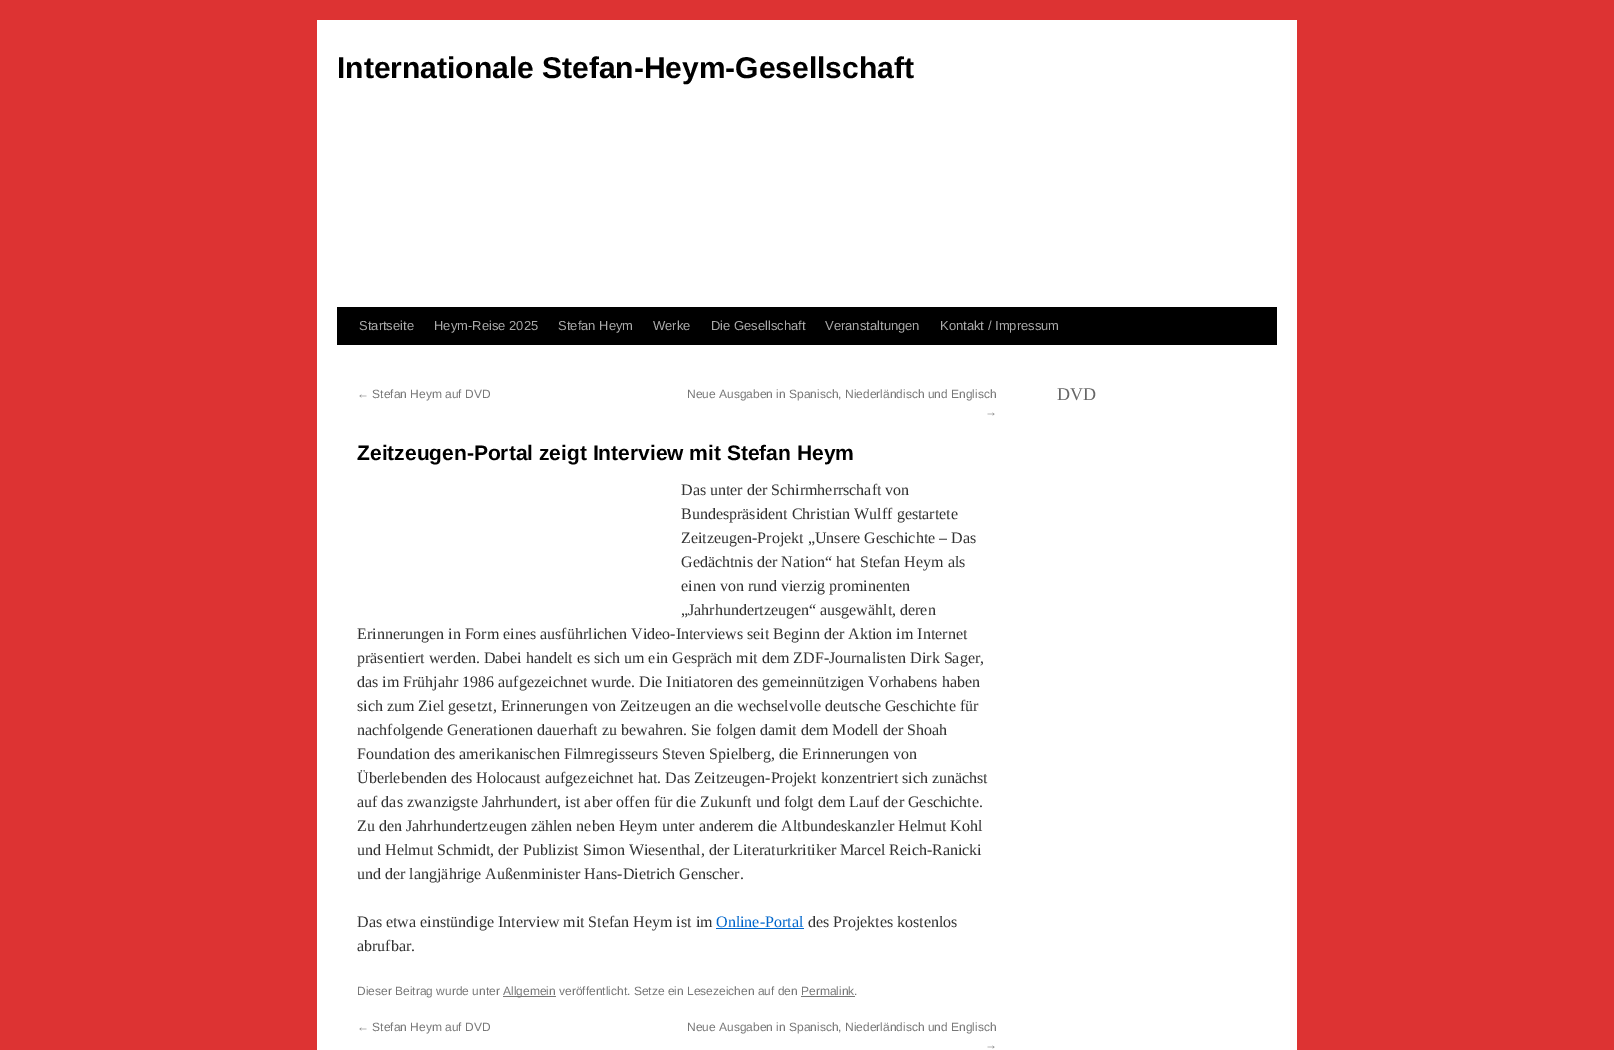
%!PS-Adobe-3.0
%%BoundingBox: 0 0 1614 1050
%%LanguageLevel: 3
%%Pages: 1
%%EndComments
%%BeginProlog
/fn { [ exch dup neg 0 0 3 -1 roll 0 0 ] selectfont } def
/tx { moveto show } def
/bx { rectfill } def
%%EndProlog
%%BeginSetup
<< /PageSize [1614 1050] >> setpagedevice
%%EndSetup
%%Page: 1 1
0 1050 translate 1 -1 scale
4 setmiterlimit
0.867 0.2 0.2 setrgbcolor
0 0 1614 1050 bx
1 setgray
317 20 980 1030 bx
/LiberationSans-Bold 30 fn
0 setgray
(Internationale Stefan-Heym-Gesellschaft) 337 78 tx
337 307 940 38 bx
/LiberationSans-Regular 13 fn
0.667 setgray
(Startseite) 359 330 tx
(Heym-Reise 2025) 434 330 tx
(Stefan Heym) 558 330 tx
(Werke) 653 330 tx
(Die Gesellschaft) 711 330 tx
(Veranstaltungen) 825 330 tx
(Kontakt / Impressum) 940 330 tx
/LiberationSans-Regular 12 fn
0.467 setgray
(← Stefan Heym auf DVD) 357 398 tx
(Neue Ausgaben in Spanisch, Niederländisch und Englisch) 687 398 tx
(→) 985 416 tx
/LiberationSans-Bold 21 fn
0 setgray
(Zeitzeugen-Portal zeigt Interview mit Stefan Heym) 357 460 tx
/LiberationSerif-Regular 16 fn
0.2 setgray
(Das unter der Schirmherrschaft von) 681 495 tx
(Bundespräsident Christian Wulff gestartete) 681 519 tx
(Zeitzeugen-Projekt „Unsere Geschichte – Das) 681 543 tx
(Gedächtnis der Nation“ hat Stefan Heym als) 681 567 tx
(einen von rund vierzig prominenten) 681 591 tx
(„Jahrhundertzeugen“ ausgewählt, deren) 681 615 tx
(Erinnerungen in Form eines ausführlichen Video-Interviews seit Beginn der Aktion im Internet) 357 639 tx
(präsentiert werden. Dabei handelt es sich um ein Gespräch mit dem ZDF-Journalisten Dirk Sager,) 357 663 tx
(das im Frühjahr 1986 aufgezeichnet wurde. Die Initiatoren des gemeinnützigen Vorhabens haben) 357 687 tx
(sich zum Ziel gesetzt, Erinnerungen von Zeitzeugen an die wechselvolle deutsche Geschichte für) 357 711 tx
(nachfolgende Generationen dauerhaft zu bewahren. Sie folgen damit dem Modell der Shoah) 357 735 tx
(Foundation des amerikanischen Filmregisseurs Steven Spielberg, die Erinnerungen von) 357 759 tx
(Überlebenden des Holocaust aufgezeichnet hat. Das Zeitzeugen-Projekt konzentriert sich zunächst) 357 783 tx
(auf das zwanzigste Jahrhundert, ist aber offen für die Zukunft und folgt dem Lauf der Geschichte.) 357 807 tx
(Zu den Jahrhundertzeugen zählen neben Heym unter anderem die Altbundeskanzler Helmut Kohl) 357 831 tx
(und Helmut Schmidt, der Publizist Simon Wiesenthal, der Literaturkritiker Marcel Reich-Ranicki) 357 855 tx
(und der langjährige Außenminister Hans-Dietrich Genscher.) 357 879 tx
(Das etwa einstündige Interview mit Stefan Heym ist im) 357 927 tx
0 0.4 0.8 setrgbcolor
716 928 88 1 bx
(Online-Portal) 716 927 tx
0.2 setgray
(des Projektes kostenlos) 808 927 tx
(abrufbar.) 357 951 tx
/LiberationSans-Regular 12 fn
0.467 setgray
(Dieser Beitrag wurde unter) 357 995 tx
503 996 53 1 bx
(Allgemein veröffentlicht. Setze ein Lesezeichen auf den Permalink.) 503 995 tx
801 996 54 1 bx
(← Stefan Heym auf DVD) 357 1031 tx
(Neue Ausgaben in Spanisch, Niederländisch und Englisch) 687 1031 tx
(→) 985 1049 tx
/LiberationSerif-Regular 18 fn
0.4 setgray
(DVD) 1057 400 tx
showpage
%%EOF
